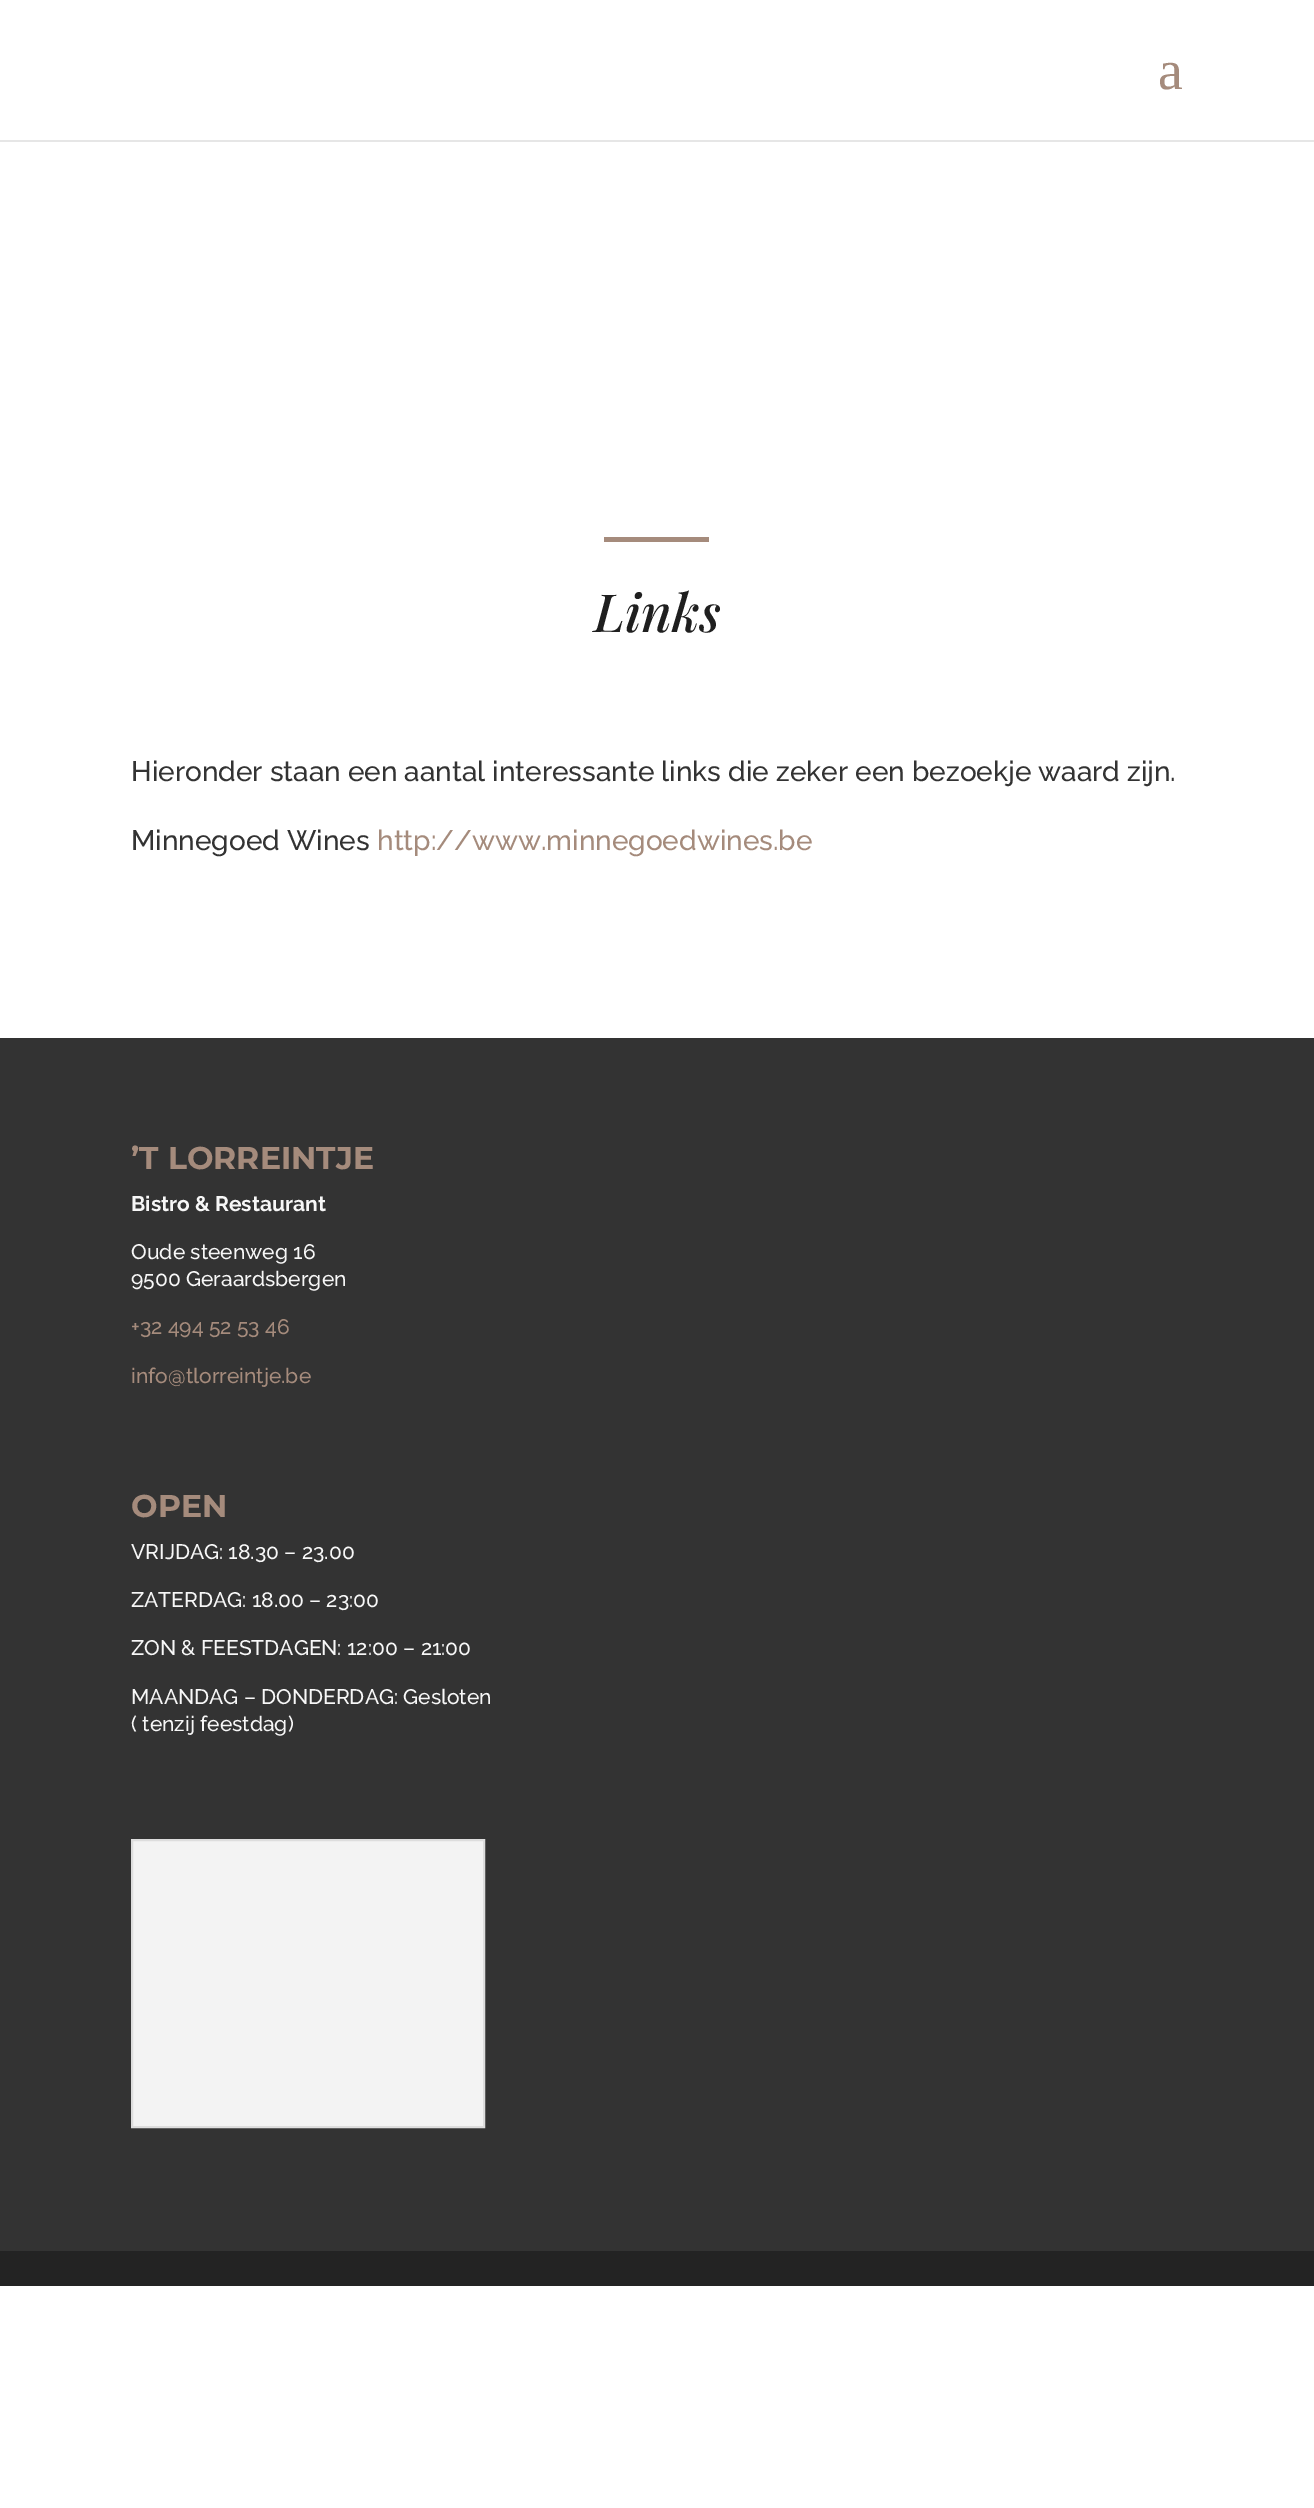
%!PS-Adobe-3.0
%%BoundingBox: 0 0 1314 2508
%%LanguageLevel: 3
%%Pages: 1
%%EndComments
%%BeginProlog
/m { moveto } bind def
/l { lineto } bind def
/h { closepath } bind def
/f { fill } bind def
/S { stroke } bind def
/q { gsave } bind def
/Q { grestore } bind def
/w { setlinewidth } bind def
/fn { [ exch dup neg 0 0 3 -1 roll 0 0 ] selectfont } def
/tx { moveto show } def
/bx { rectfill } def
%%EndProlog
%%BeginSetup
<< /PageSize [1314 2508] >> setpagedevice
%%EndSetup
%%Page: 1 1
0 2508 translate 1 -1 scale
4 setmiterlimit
1 setgray
0 0 1314 2508 bx
0.902 setgray
0 140 1314 2 bx
/LiberationSerif-Regular 56 fn
0.647 0.545 0.486 setrgbcolor
(a) 1158 89 tx
604 537 105 5 bx
/PlayfairDisplay-MediumItalic 52.5 fn
0.122 setgray
(Links) 594 632 tx
/Raleway-Medium 28 fn
0.2 setgray
(Hieronder staan een aantal interessante links die zeker een bezoekje waard zijn.) 131 781 tx
(Minnegoed Wines) 131 850 tx
0.647 0.545 0.486 setrgbcolor
(http://www.minnegoedwines.be) 377 850 tx
0.2 setgray
0 1038 1314 1213 bx
/Montserrat-Bold 31.5 fn
0.647 0.545 0.486 setrgbcolor
(’T LORREINTJE) 131 1169 tx
/Raleway-Bold 21 fn
0.969 setgray
(Bistro & Restaurant) 131 1211 tx
/Raleway-Medium 21 fn
(Oude steenweg 16) 131 1259 tx
(9500 Geraardsbergen) 131 1286 tx
0.647 0.545 0.486 setrgbcolor
(+32 494 52 53 46) 131 1334 tx
(info@tlorreintje.be) 131 1383 tx
/Montserrat-Bold 31.5 fn
(OPEN) 131 1517 tx
/Raleway-Medium 21 fn
0.969 setgray
(VRIJDAG: 18.30 – 23.00) 131 1559 tx
(ZATERDAG: 18.00 – 23:00) 131 1607 tx
(ZON & FEESTDAGEN: 12:00 – 21:00) 131 1655 tx
(MAANDAG – DONDERDAG: Gesloten) 131 1704 tx
(\( tenzij feestdag\)) 131 1731 tx
0.953 setgray
132 1840 m 484 1840 l 484 2127 l 132 2127 l h q f Q
0.867 setgray
2 w
S
0.137 setgray
0 2251 1314 35 bx
showpage
%%EOF
